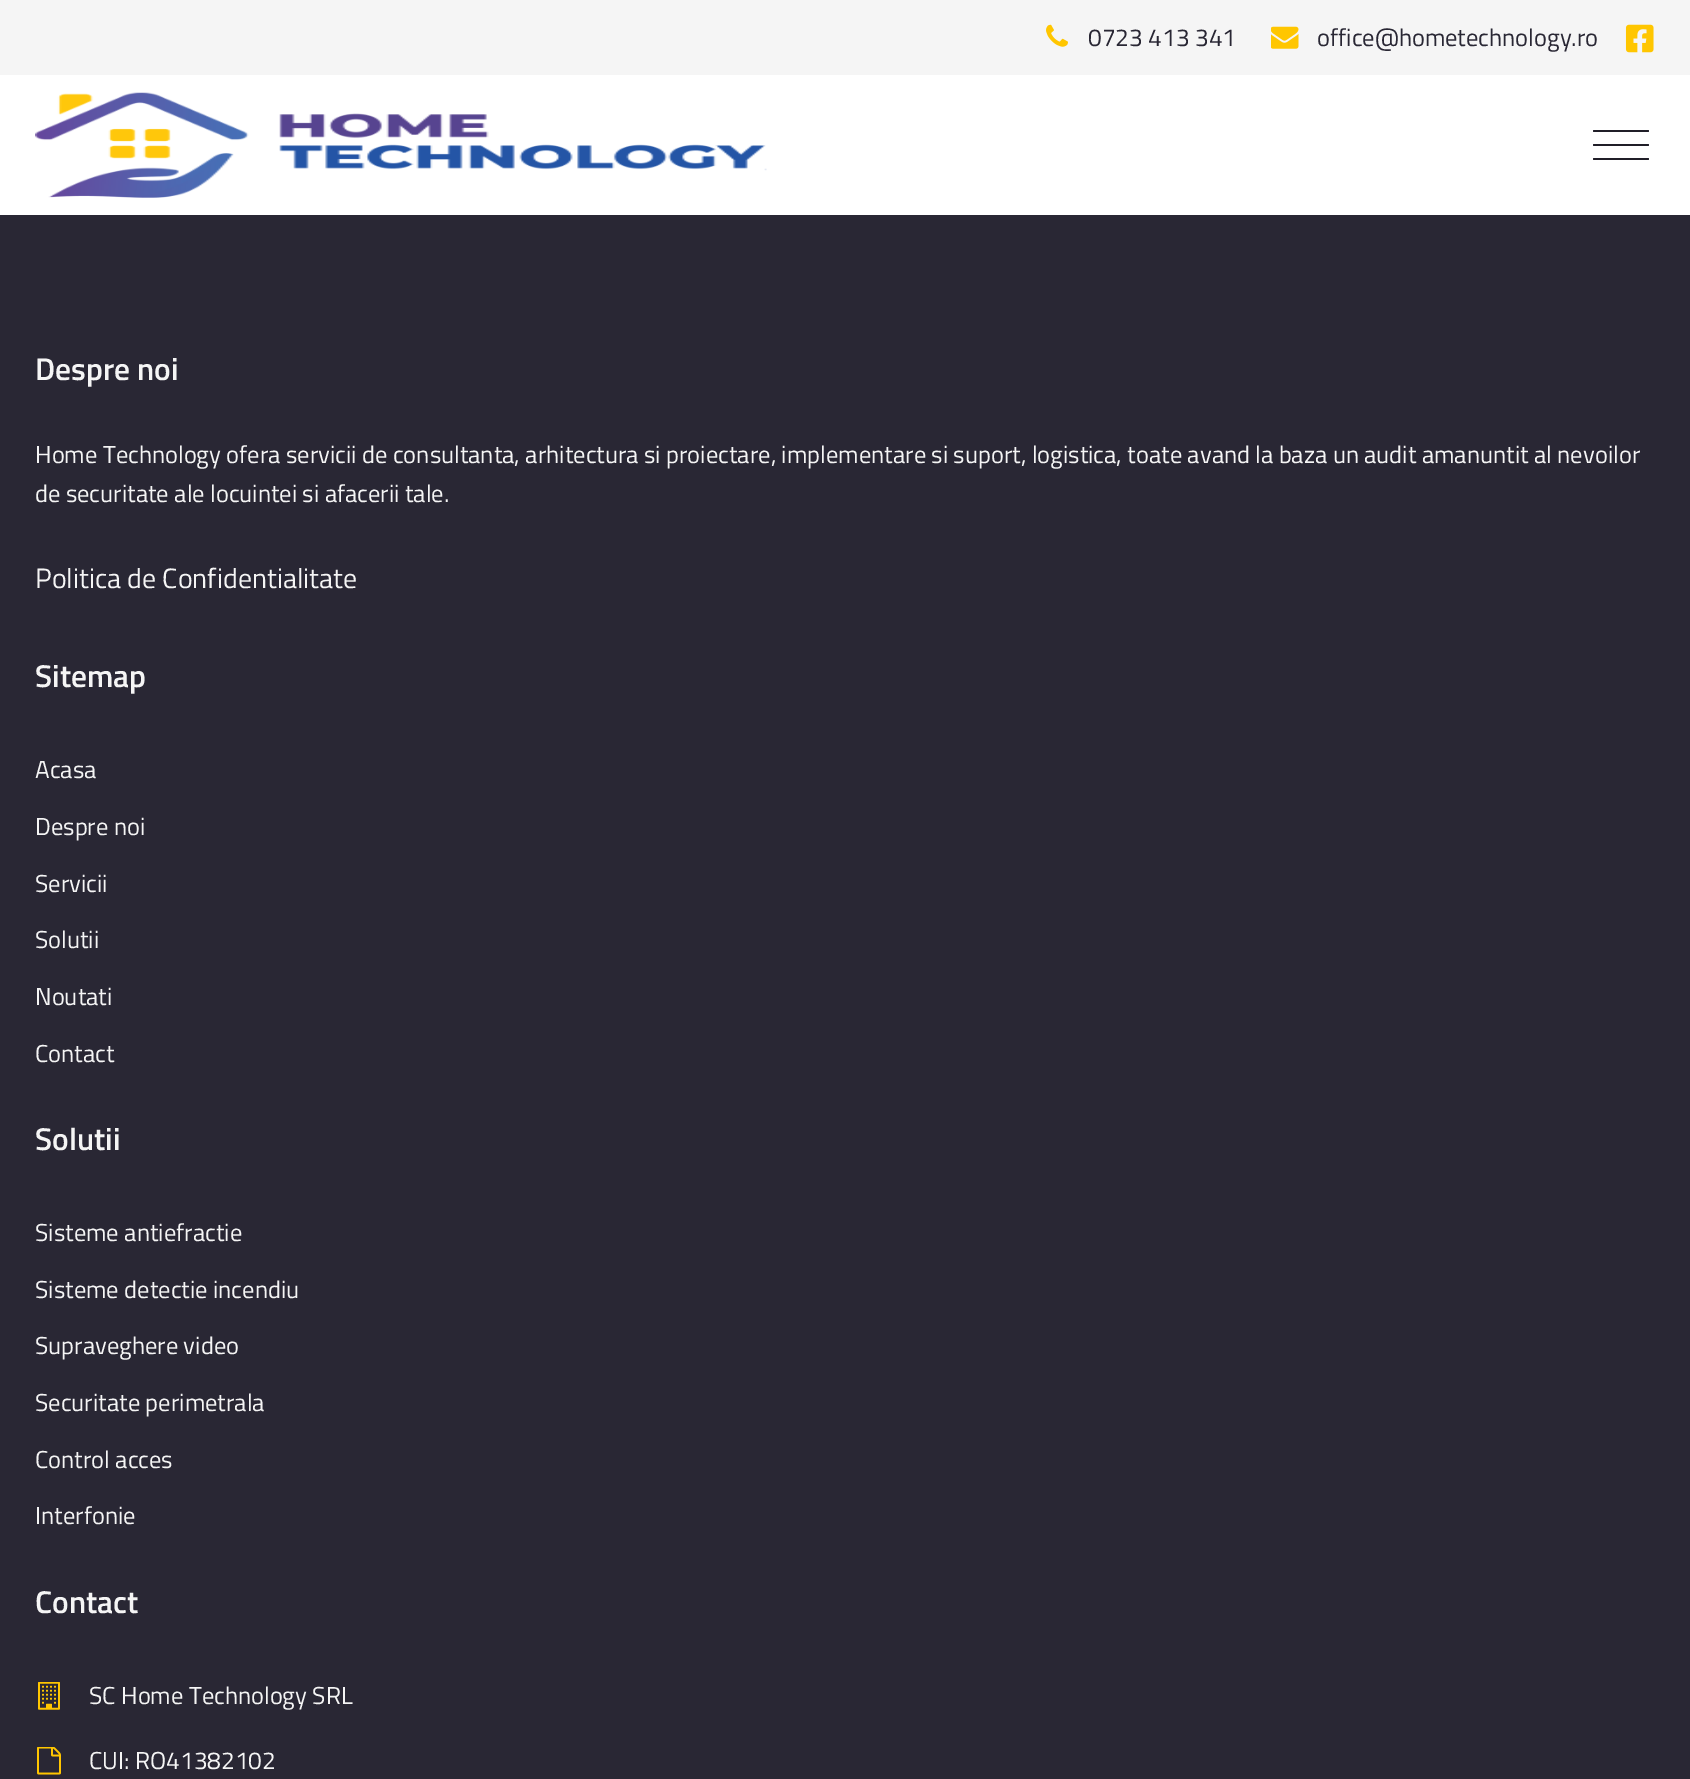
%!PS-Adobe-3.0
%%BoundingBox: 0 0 1690 1779
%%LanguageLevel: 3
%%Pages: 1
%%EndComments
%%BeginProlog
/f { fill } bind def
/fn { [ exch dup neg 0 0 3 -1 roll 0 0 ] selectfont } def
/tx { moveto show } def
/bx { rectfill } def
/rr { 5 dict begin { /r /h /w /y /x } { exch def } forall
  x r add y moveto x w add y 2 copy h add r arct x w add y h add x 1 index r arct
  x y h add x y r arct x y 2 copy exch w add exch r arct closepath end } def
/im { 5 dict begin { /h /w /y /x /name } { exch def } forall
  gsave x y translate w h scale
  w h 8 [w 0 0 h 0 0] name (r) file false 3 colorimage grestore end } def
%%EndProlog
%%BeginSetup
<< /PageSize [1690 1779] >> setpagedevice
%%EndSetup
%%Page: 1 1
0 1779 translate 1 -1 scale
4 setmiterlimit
1 setgray
0 0 1690 1779 bx
0.961 setgray
0 0 1690 75 bx
(image0.raw) 1046 24 22 23 im
/TitilliumWeb-Regular 24.5 fn
0.161 0.153 0.204 setrgbcolor
(0723 413 341) 1088 46 tx
(image1.raw) 1271 26 28 23 im
(office@hometechnology.ro) 1317 46 tx
(image2.raw) 1625 24 29 29 im
(image3.raw) 35 92 732 106 im
0.125 0.118 0.157 setrgbcolor
1593 130 56 2 1 rr f
1593 144 56 2 1 rr f
1593 158 56 2 1 rr f
0.161 0.153 0.204 setrgbcolor
0 215 1690 1564 bx
/TitilliumWeb-SemiBold 31.5 fn
0.961 setgray
(Despre noi) 35 380 tx
/TitilliumWeb-Regular 24.5 fn
(Home Technology ofera servicii de consultanta, arhitectura si proiectare, implementare si suport, logistica, toate avand la baza un audit amanuntit al nevoilor) 35 463 tx
(de securitate ale locuintei si afacerii tale.) 35 502 tx
/TitilliumWeb-Regular 28 fn
(Politica de Confidentialitate) 35 588 tx
/TitilliumWeb-SemiBold 31.5 fn
(Sitemap) 35 687 tx
/TitilliumWeb-Regular 24.5 fn
(Acasa) 35 778 tx
(Despre noi) 35 835 tx
(Servicii) 35 892 tx
(Solutii) 35 948 tx
(Noutati) 35 1005 tx
(Contact) 35 1062 tx
/TitilliumWeb-SemiBold 31.5 fn
(Solutii) 35 1150 tx
/TitilliumWeb-Regular 24.5 fn
(Sisteme antiefractie) 35 1241 tx
(Sisteme detectie incendiu) 35 1298 tx
(Supraveghere video) 35 1354 tx
(Securitate perimetrala) 35 1411 tx
(Control acces) 35 1468 tx
(Interfonie) 35 1524 tx
/TitilliumWeb-SemiBold 31.5 fn
(Contact) 35 1613 tx
(image4.raw) 38 1682 22 28 im
/TitilliumWeb-Regular 24.5 fn
(SC Home Technology SRL) 89 1704 tx
(image5.raw) 37 1747 24 28 im
(CUI: RO41382102) 89 1769 tx
showpage
%%EOF
